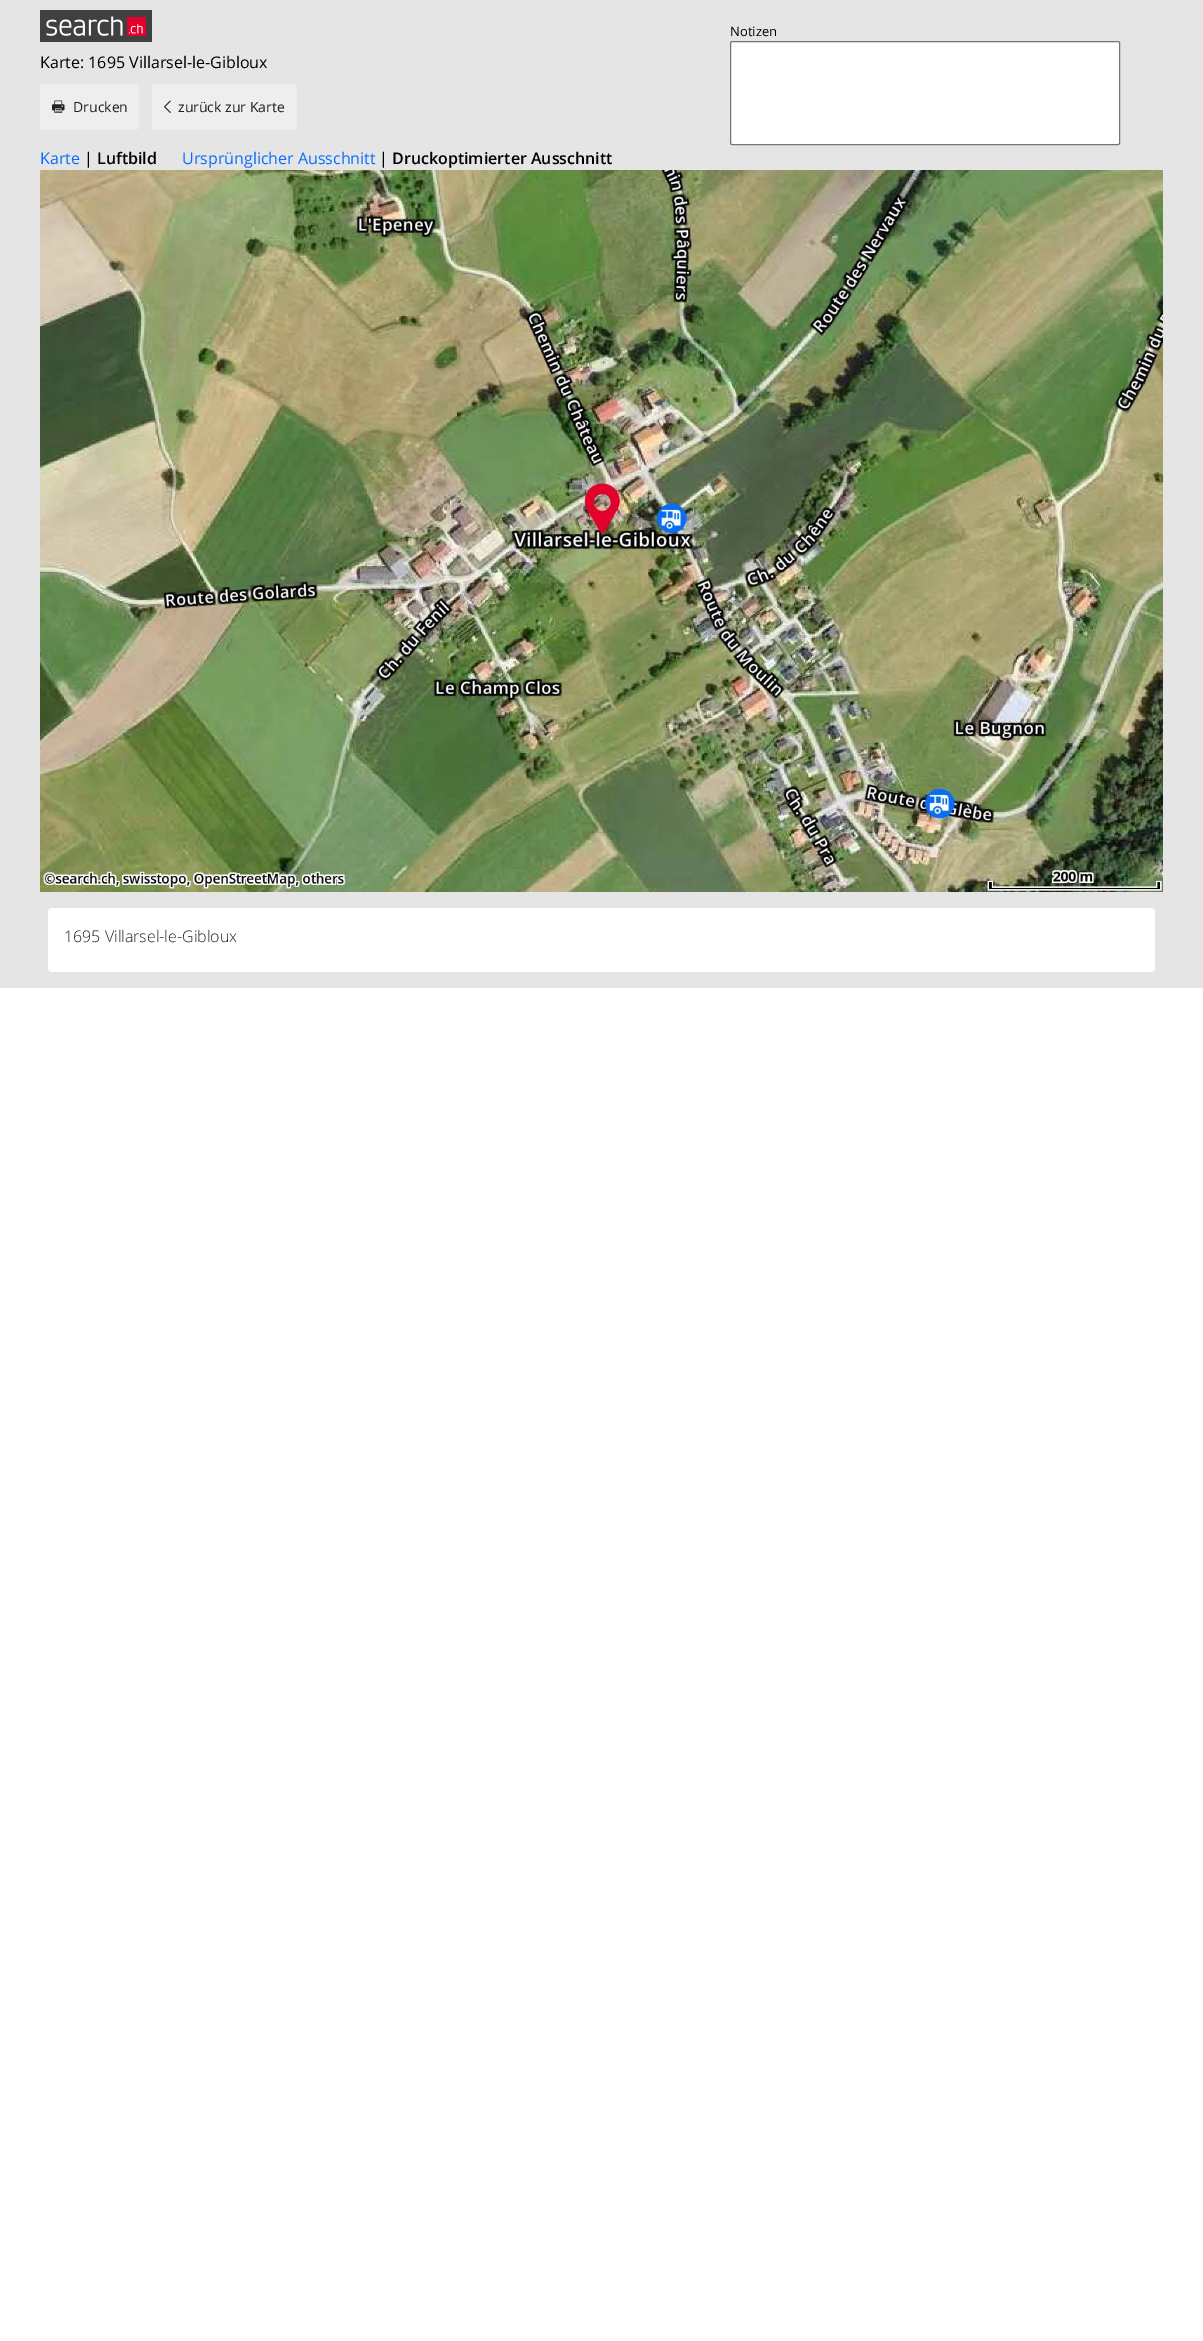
%!PS-Adobe-3.0
%%BoundingBox: 0 0 1203 2341
%%LanguageLevel: 3
%%Pages: 1
%%EndComments
%%BeginProlog
/f { fill } bind def
/S { stroke } bind def
/q { gsave } bind def
/Q { grestore } bind def
/fn { [ exch dup neg 0 0 3 -1 roll 0 0 ] selectfont } def
/tx { moveto show } def
/bx { rectfill } def
/rr { 5 dict begin { /r /h /w /y /x } { exch def } forall
  x r add y moveto x w add y 2 copy h add r arct x w add y h add x 1 index r arct
  x y h add x y r arct x y 2 copy exch w add exch r arct closepath end } def
/im { 5 dict begin { /h /w /y /x /name } { exch def } forall
  gsave x y translate w h scale
  w h 8 [w 0 0 h 0 0] name (r) file false 3 colorimage grestore end } def
%%EndProlog
%%BeginSetup
<< /PageSize [1203 2341] >> setpagedevice
%%EndSetup
%%Page: 1 1
0 2341 translate 1 -1 scale
4 setmiterlimit
1 setgray
0 0 1203 2341 bx
0.898 setgray
0 0 1203 988 bx
/OpenSans-Regular 13 fn
0 setgray
(Notizen) 730 36 tx
1 setgray
730.5 41.5 389 103 1.5 rr q f Q
0.463 setgray
S
(image0.raw) 40 10 112 32 im
/OpenSans-Regular 16 fn
0 setgray
(Karte: 1695 Villarsel-le-Gibloux) 40 68 tx
0.933 setgray
40 84 99 46 4 rr f
(image1.raw) 52 100 13 13 im
/OpenSans-Regular 14 fn
0.133 setgray
(Drucken) 73 112 tx
0.933 setgray
152 84 145 46 4 rr f
(image2.raw) 164 100 7 13 im
0.133 setgray
(zurück zur Karte) 178 112 tx
/OpenSans-Regular 16 fn
0.02 0.427 1 setrgbcolor
(Karte) 40 164 tx
0 setgray
(|) 84 164 tx
/OpenSans-SemiBold 16 fn
(Luftbild) 97 164 tx
/OpenSans-Regular 16 fn
0.02 0.427 1 setrgbcolor
(Ursprünglicher Ausschnitt) 182 164 tx
0 setgray
(|) 379 164 tx
/OpenSans-SemiBold 16 fn
(Druckoptimierter Ausschnitt) 392 164 tx
(image3.raw) 40 170 1123 722 im
1 setgray
48 908 1107 64 4 rr f
/OpenSans-Light 16 fn
0.133 setgray
(1695 Villarsel-le-Gibloux) 64 942 tx
showpage
%%EOF
